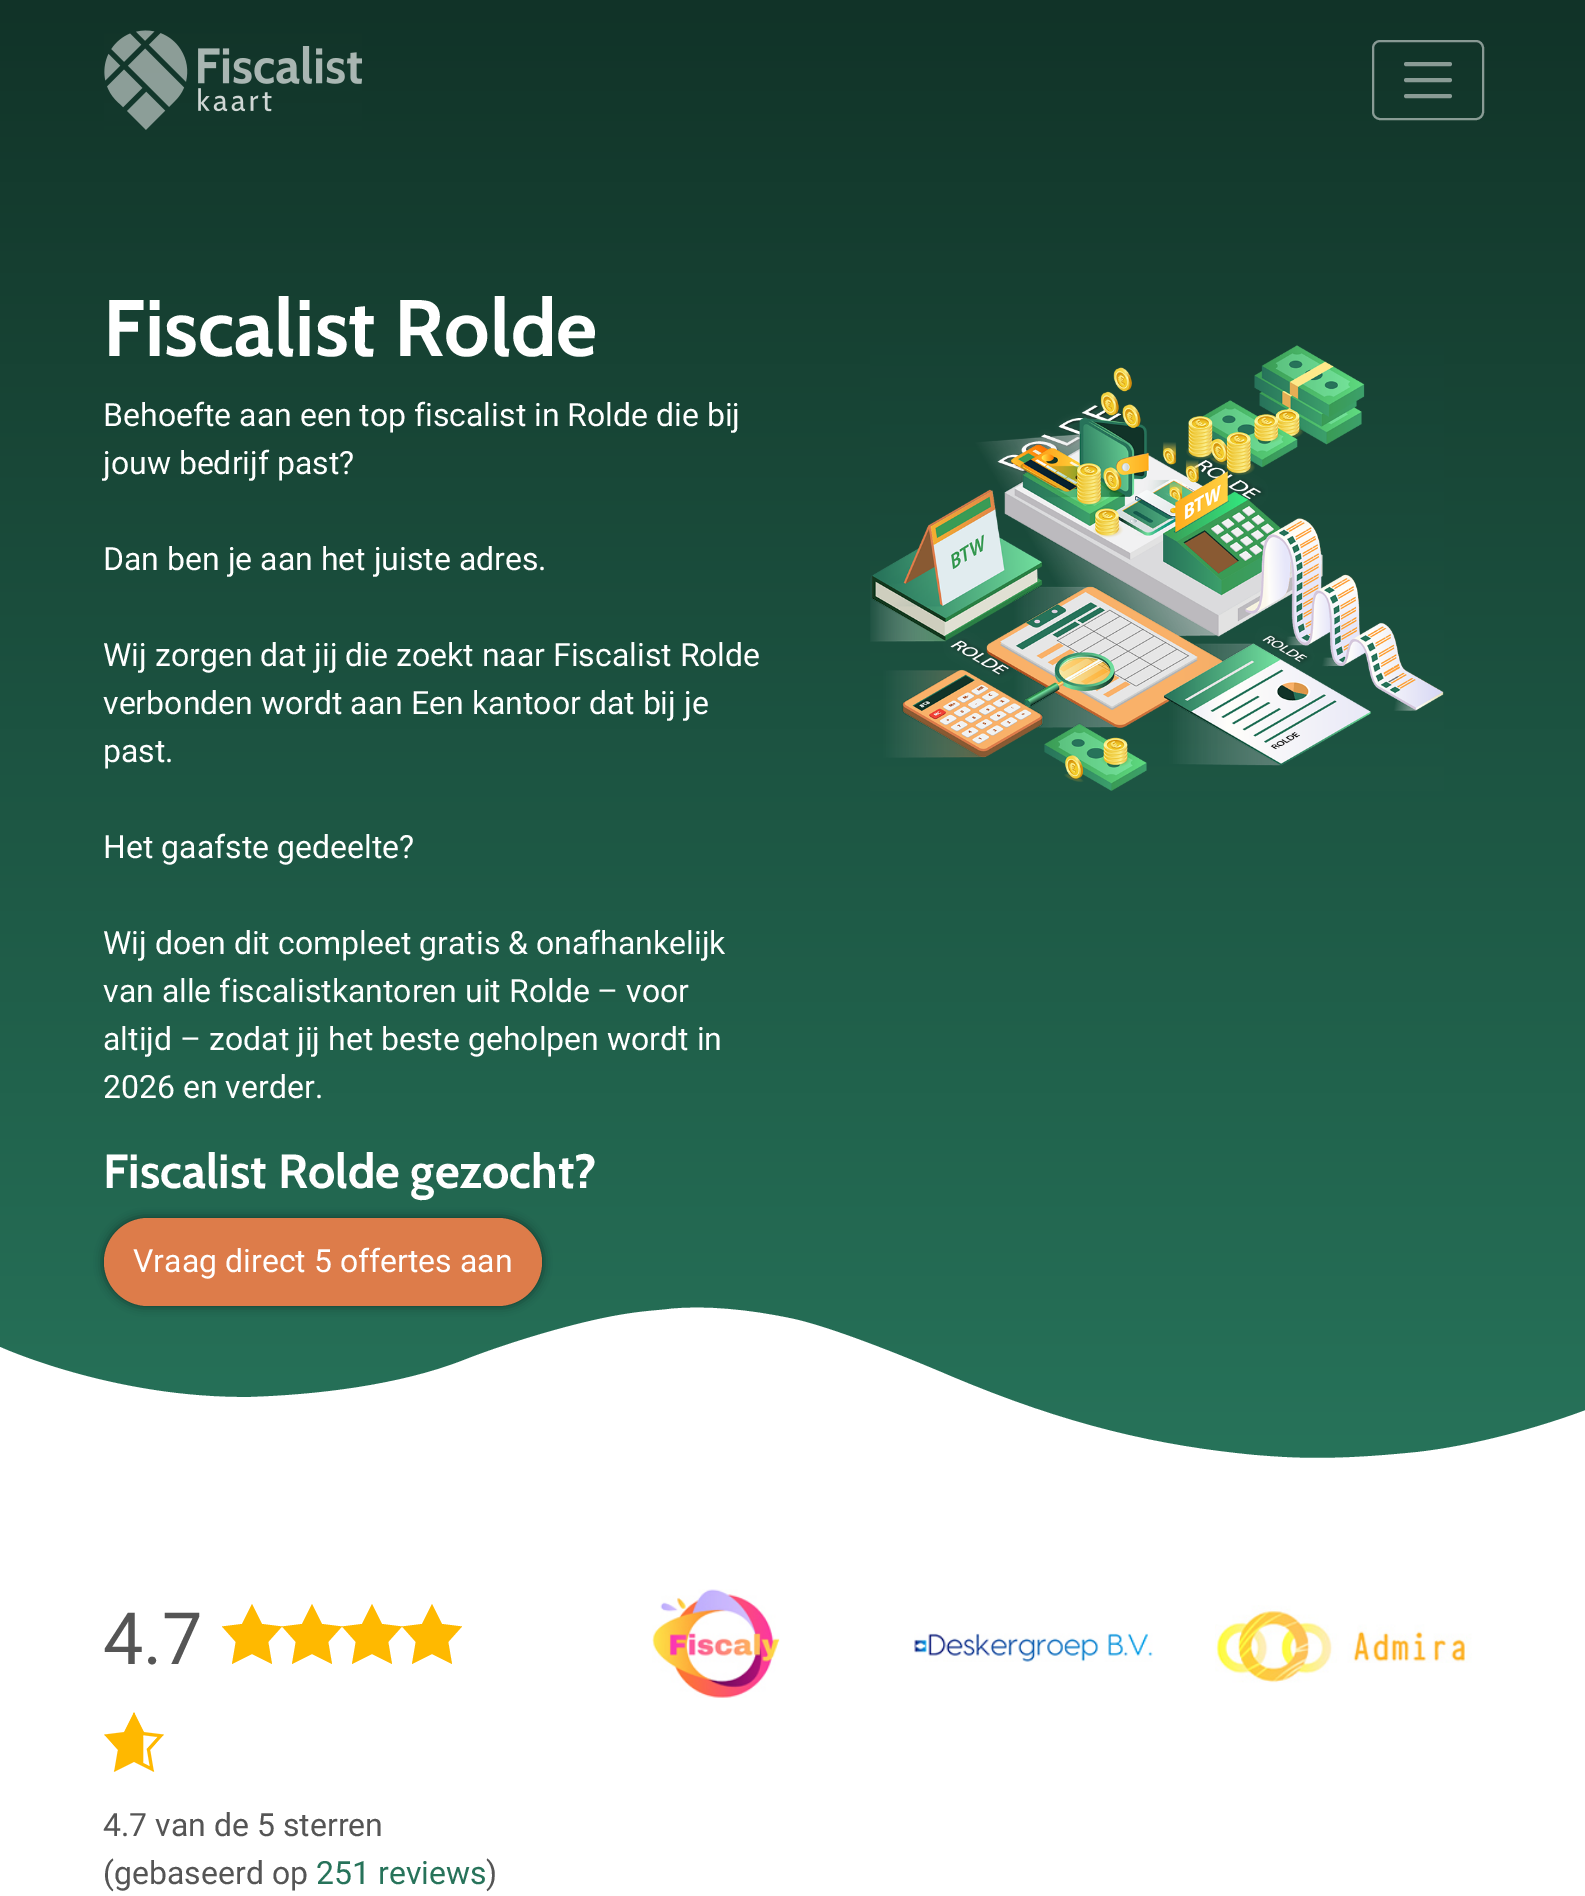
%!PS-Adobe-3.0
%%BoundingBox: 0 0 1585 1896
%%LanguageLevel: 3
%%Pages: 1
%%EndComments
%%BeginProlog
/m { moveto } bind def
/l { lineto } bind def
/c { curveto } bind def
/h { closepath } bind def
/f { fill } bind def
/S { stroke } bind def
/q { gsave } bind def
/Q { grestore } bind def
/w { setlinewidth } bind def
/fn { [ exch dup neg 0 0 3 -1 roll 0 0 ] selectfont } def
/tx { moveto show } def
/bx { rectfill } def
/al { dup .setfillconstantalpha .setstrokeconstantalpha } def
/rr { 5 dict begin { /r /h /w /y /x } { exch def } forall
  x r add y moveto x w add y 2 copy h add r arct x w add y h add x 1 index r arct
  x y h add x y r arct x y 2 copy exch w add exch r arct closepath end } def
/sh { 12 dict begin { /a /b /q /h /w /y /x } { exch def } forall gsave /was 0 def
  9 -2 -9 { dup b mul 4 div /e exch def 1 sub .425 mul 2.718 exch exp 1 add a .99 .min exch div /now exch def
    1 1 now sub 1 was sub div sub al /was now def
    w h .min e 2 mul add 0 gt { x e sub y e sub w e 2 mul add h e 2 mul add
      q e add b .6 mul add w h .min 2 div e add .min 0 .max rr fill } if } for grestore end } def
/im { 5 dict begin { /h /w /y /x /name } { exch def } forall
  gsave x y translate w h scale
  w h 8 [w 0 0 h 0 0] name (r) file false 3 colorimage grestore end } def
%%EndProlog
%%BeginSetup
<< /PageSize [1585 1896] /PageUsesTransparency true >> setpagedevice
%%EndSetup
%%Page: 1 1
0 .pushpdf14devicefilter
0 1896 translate 1 -1 scale
4 setmiterlimit
1 setgray
0 0 1585 1896 bx
q 0 0 m 1585 0 l 1585 1458 l 0 1458 l h clip newpath
<< /ShadingType 2 /ColorSpace /DeviceRGB /Coords [793 0 793 1466] /Extend [true true] /Function << /FunctionType 2 /Domain [0 1] /C0 [0.067 0.2 0.157] /C1 [0.153 0.451 0.353] /N 1 >> >> shfill Q
(image0.raw) 104 30 258 100 im
0.5 al
2 w
1373 41 110 78 7 rr S
1 al
0.537 0.608 0.584 setrgbcolor
4 w
1 setlinecap
1406 64 m 1450 64 l 1406 80 m 1450 80 l 1406 96 m 1450 96 l S
/Cabin-Bold 80 fn
1 setgray
(Fiscalist Rolde) 103 356 tx
/Roboto-Regular 32 fn
(Behoefte aan een top fiscalist in Rolde die bij) 103 426 tx
(jouw bedrijf past?) 103 474 tx
(Dan ben je aan het juiste adres.) 103 570 tx
(Wij zorgen dat jij die zoekt naar Fiscalist Rolde) 103 666 tx
(verbonden wordt aan Een kantoor dat bij je) 103 714 tx
(past.) 103 762 tx
(Het gaafste gedeelte?) 103 858 tx
(Wij doen dit compleet gratis & onafhankelijk) 103 954 tx
(van alle fiscalistkantoren uit Rolde – voor) 103 1002 tx
(altijd – zodat jij het beste geholpen wordt in) 103 1050 tx
(2026 en verder.) 103 1098 tx
/Cabin-Bold 48 fn
(Fiscalist Rolde gezocht?) 103 1188 tx
1254 1455 m 1160 1446 1068 1426 948 1375 c 901 1355 826 1325 789 1318 c 751 1310 705 1305 669 1309 c 653 1311 633 1311 590 1321 c 547 1331 497 1347 464 1360 c 398 1386 313 1395 251 1397 c 114 1399 0 1347 0 1347 c 0 1466 l 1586 1466 l 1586 1410 l 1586 1410 1504 1442 1418 1452 c 1331 1461 1291 1458 1254 1455 c h f
0 setgray
104 1218 438 88 44 5 0.5 sh
0.867 0.486 0.29 setrgbcolor
104 1218 438 88 44 rr f
/Roboto-Regular 32 fn
1 setgray
(Vraag direct 5 offertes aan) 133 1272 tx
(image1.raw) 870 345 574 446 im
/Roboto-Regular 72 fn
0.333 setgray
(4.7) 103 1664 tx
(image2.raw) 222 1604 60 60 im
(image2.raw) 282 1604 60 60 im
(image2.raw) 342 1604 60 60 im
(image2.raw) 402 1604 60 60 im
(image3.raw) 104 1712 60 60 im
/Roboto-Regular 32 fn
(4.7 van de 5 sterren) 103 1836 tx
(\(gebaseerd op) 103 1884 tx
0.153 0.451 0.353 setrgbcolor
(251 reviews) 316 1884 tx
0.333 setgray
(\)) 486 1884 tx
(image4.raw) 652 1589 128 109 im
(image5.raw) 914 1633 239 29 im
(image6.raw) 1215 1605 257 78 im
.poppdf14devicefilter showpage
%%EOF
